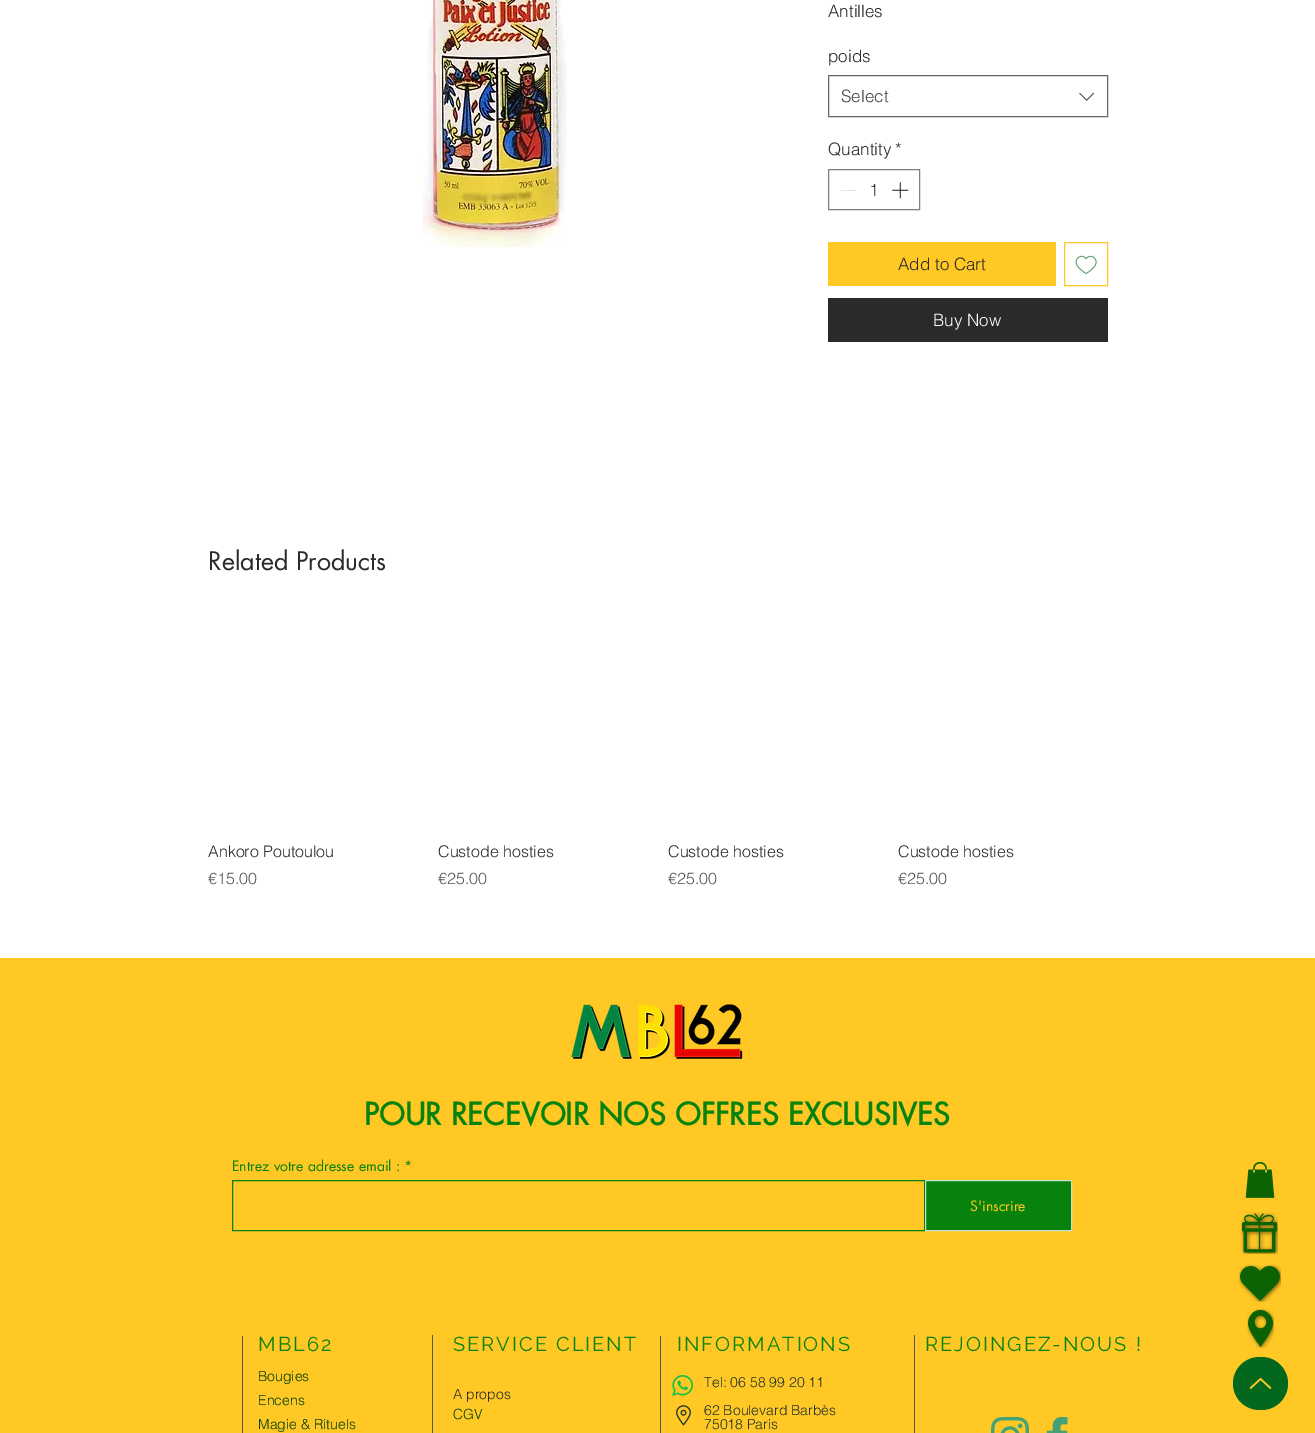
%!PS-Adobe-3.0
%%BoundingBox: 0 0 1315 1433
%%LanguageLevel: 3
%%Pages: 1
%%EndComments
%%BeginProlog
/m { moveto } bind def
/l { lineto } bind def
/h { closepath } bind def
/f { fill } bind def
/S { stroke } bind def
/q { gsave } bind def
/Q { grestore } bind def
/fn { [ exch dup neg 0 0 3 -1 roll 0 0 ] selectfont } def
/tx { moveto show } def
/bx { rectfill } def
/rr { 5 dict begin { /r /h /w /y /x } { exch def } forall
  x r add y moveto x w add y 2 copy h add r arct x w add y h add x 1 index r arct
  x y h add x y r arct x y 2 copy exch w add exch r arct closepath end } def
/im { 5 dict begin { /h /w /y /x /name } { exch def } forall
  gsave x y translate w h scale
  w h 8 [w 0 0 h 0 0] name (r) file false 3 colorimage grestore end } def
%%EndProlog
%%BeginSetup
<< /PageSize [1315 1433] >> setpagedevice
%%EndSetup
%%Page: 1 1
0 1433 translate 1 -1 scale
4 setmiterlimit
1 setgray
0 0 1315 1433 bx
(image0.raw) 421 0 146 247 im
/helvetica-Light 17 fn
0.165 setgray
(Antilles) 828 17 tx
(poids) 828 62 tx
0.4 setgray
828.5 75.5 279 41 rectstroke
0.267 setgray
(Select) 841 102 tx
(image1.raw) 1079 92 16 9 im
0.165 setgray
(Quantity) 828 155 tx
(*) 895 155 tx
0.498 setgray
828.5 169.5 91 40 rectstroke
0.89 setgray
841 190 15 1 bx
0.165 setgray
(1) 869 196 tx
(image2.raw) 892 182 17 17 im
1 0.784 0.141 setrgbcolor
828 242 228 44 bx
0.165 setgray
(Add to Cart) 898 270 tx
1 0.784 0.141 setrgbcolor
1064.5 242.5 43 43 rectstroke
(image3.raw) 1075 255 22 19 im
0.165 setgray
828 298 280 44 bx
1 setgray
(Buy Now) 933 326 tx
/futura-Regular 25 fn
0.165 setgray
(Related Products) 208 570 tx
/helvetica-Light 16 fn
(Ankoro Poutoulou) 208 857 tx
0.333 setgray
(€15.00) 208 884 tx
0.165 setgray
(Custode hosties) 438 857 tx
0.333 setgray
(€25.00) 438 884 tx
0.165 setgray
(Custode hosties) 668 857 tx
0.333 setgray
(€25.00) 668 884 tx
0.165 setgray
(Custode hosties) 898 857 tx
0.333 setgray
(€25.00) 898 884 tx
1 0.784 0.141 setrgbcolor
0 958 1315 475 bx
(image4.raw) 571 1004 172 55 im
/futura-Bold 30 fn
0.027 0.514 0.051 setrgbcolor
(POUR RECEVOIR NOS OFFRES EXCLUSIVES) 364 1125 tx
/futura-Regular 14 fn
(Entrez votre adresse email : *) 232 1171 tx
232.5 1180.5 692 50 rectstroke
925.5 1180.5 m 1071.5 1180.5 l 1071.5 1230.5 l 925.5 1230.5 l h q f Q
0.773 0.878 0.8 setrgbcolor
S
1 0.784 0.141 setrgbcolor
(S'inscrire) 970 1211 tx
0.333 setgray
242 1336 1 97 bx
/Raleway-Regular 20 fn
0.027 0.514 0.051 setrgbcolor
258 1351 m 2 0 (MBL62) ashow
0.333 setgray
432 1335 1 98 bx
0.027 0.514 0.051 setrgbcolor
453 1351 m 2 0 (SERVICE CLIENT) ashow
0.333 setgray
660 1336 1 97 bx
0.027 0.514 0.051 setrgbcolor
677 1351 m 2 0 (INFORMATIONS) ashow
0.333 setgray
914 1335 1 98 bx
0.027 0.514 0.051 setrgbcolor
925 1351 m 2 0 (REJOINGEZ-NOUS !) ashow
/helvetica-Light 14 fn
0.02 0.251 0.039 setrgbcolor
(Bougies) 258 1381 tx
(Encens) 258 1405 tx
(Magie & Rituels) 258 1429 tx
0.165 setgray
(A propos) 453 1399 tx
0.02 0.251 0.039 setrgbcolor
(CGV) 453 1419 tx
(image5.raw) 672 1375 21 21 im
0.137 0.212 0.157 setrgbcolor
(Tel: 06 58 99 20 11) 704 1387 tx
(62 Boulevard Barbès) 704 1415 tx
(75018 Paris) 704 1429 tx
(image6.raw) 676 1405 15 21 im
(image7.raw) 991 1417 38 16 im
(image8.raw) 1046 1417 22 16 im
(image9.raw) 1245 1162 30 36 im
(image10.raw) 1241 1212 37 42 im
(image11.raw) 1239 1265 42 37 im
(image12.raw) 1247 1309 27 39 im
0.012 0.408 0.118 setrgbcolor
1233 1357 55 53 26.5 rr f
(image13.raw) 1249 1378 23 11 im
showpage
%%EOF
